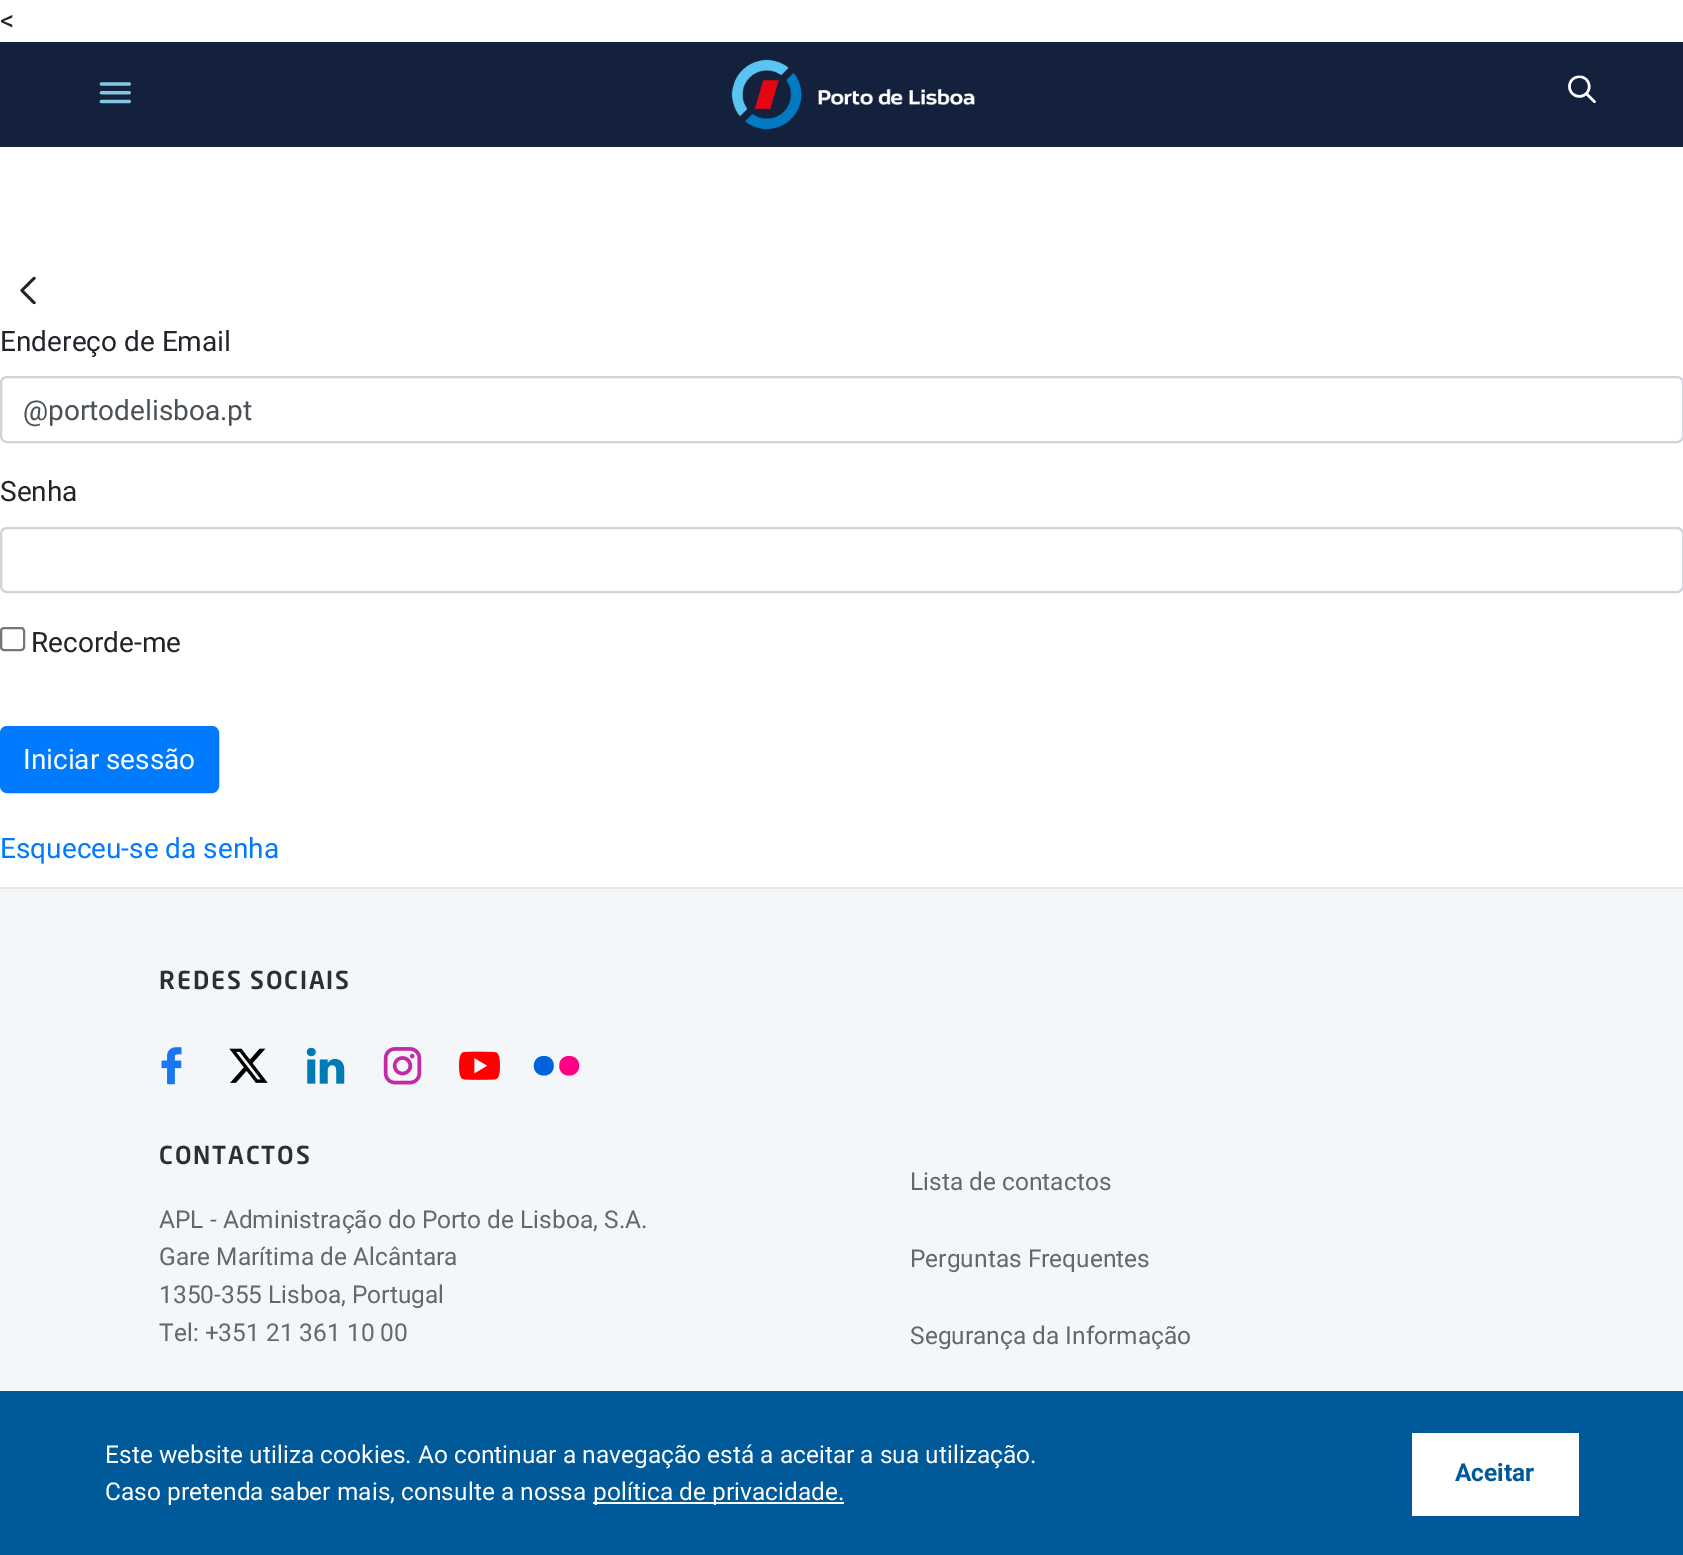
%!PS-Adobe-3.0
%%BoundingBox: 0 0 1683 1555
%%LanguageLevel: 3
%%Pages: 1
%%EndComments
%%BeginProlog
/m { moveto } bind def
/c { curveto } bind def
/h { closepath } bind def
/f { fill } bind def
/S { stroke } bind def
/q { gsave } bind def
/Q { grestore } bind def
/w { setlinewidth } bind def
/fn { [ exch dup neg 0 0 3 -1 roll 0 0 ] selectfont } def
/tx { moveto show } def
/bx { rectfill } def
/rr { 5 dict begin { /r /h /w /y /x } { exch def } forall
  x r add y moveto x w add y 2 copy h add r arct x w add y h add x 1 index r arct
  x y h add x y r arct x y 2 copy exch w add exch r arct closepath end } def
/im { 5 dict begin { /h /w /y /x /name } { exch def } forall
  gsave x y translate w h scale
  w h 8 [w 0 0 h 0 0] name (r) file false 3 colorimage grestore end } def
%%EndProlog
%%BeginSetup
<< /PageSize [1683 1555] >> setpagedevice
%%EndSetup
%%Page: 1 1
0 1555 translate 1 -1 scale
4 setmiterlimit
1 setgray
0 0 1683 1555 bx
/Roboto-Regular 28 fn
0.129 0.145 0.161 setrgbcolor
(<) 0 30 tx
0.078 0.129 0.239 setrgbcolor
0 42 1683 105 bx
(image0.raw) 99 82 32 22 im
(image1.raw) 731 59 244 71 im
(image2.raw) 1568 75 28 28 im
(image3.raw) 20 276 16 29 im
0.129 0.145 0.161 setrgbcolor
(Endereço de Email) 0 351 tx
0.808 0.831 0.855 setrgbcolor
2 w
1 377 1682 65 6 rr S
0.286 0.314 0.341 setrgbcolor
(@portodelisboa.pt) 23 420 tx
0.129 0.145 0.161 setrgbcolor
(Senha) 0 501 tx
0.808 0.831 0.855 setrgbcolor
1 528 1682 64 6 rr S
0.463 setgray
1 628 23 22 3 rr S
0.129 0.145 0.161 setrgbcolor
(Recorde-me) 31 652 tx
0 0.482 1 setrgbcolor
1 727 217 65 6 rr q f Q
S
1 setgray
(Iniciar sessão) 23 769 tx
0 0.482 1 setrgbcolor
(Esqueceu-se da senha) 0 858 tx
0 0.349 0.6 setrgbcolor
0 1391 1683 164 bx
/Roboto-Regular 24.5 fn
1 setgray
(Este website utiliza cookies. Ao continuar a navegação está a aceitar a sua utilização.) 105 1463 tx
(Caso pretenda saber mais, consulte a nossa) 105 1500 tx
593 1502 251 2 bx
(política de privacidade.) 593 1500 tx
1412 1433 167 83 bx
/Roboto-Bold 24.5 fn
0 0.349 0.6 setrgbcolor
(Aceitar) 1455 1481 tx
0.957 0.969 0.976 setrgbcolor
0 889 1683 502 bx
0.902 setgray
0 887 1683 2 bx
/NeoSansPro-Medium 24.5 fn
0.18 setgray
159 989 m 1.75 0 (REDES SOCIAIS) ashow
(image4.raw) 161 1047 21 38 im
(image5.raw) 229 1048 39 35 im
(image6.raw) 306 1047 39 37 im
(image7.raw) 383 1047 39 38 im
(image8.raw) 459 1051 41 29 im
1 0 0.518 setrgbcolor
569 1075.5 m 582.5 1075.5 582.5 1056 569 1056 c 556 1056 556 1075.5 569 1075.5 c f
0 0.388 0.863 setrgbcolor
544 1075.5 m 557 1075.5 557 1056 544 1056 c 530.5 1056 530.5 1075.5 544 1075.5 c h f
0.18 setgray
159 1164 m 1.75 0 (CONTACTOS) ashow
/Roboto-Regular 24.5 fn
0.404 setgray
(APL - Administração do Porto de Lisboa, S.A.) 159 1228 tx
(Gare Marítima de Alcântara) 159 1265 tx
(1350-355 Lisboa, Portugal) 159 1303 tx
(Tel: +351 21 361 10 00) 159 1341 tx
(Lista de contactos) 910 1190 tx
(Perguntas Frequentes) 910 1267 tx
(Segurança da Informação) 910 1344 tx
showpage
%%EOF
